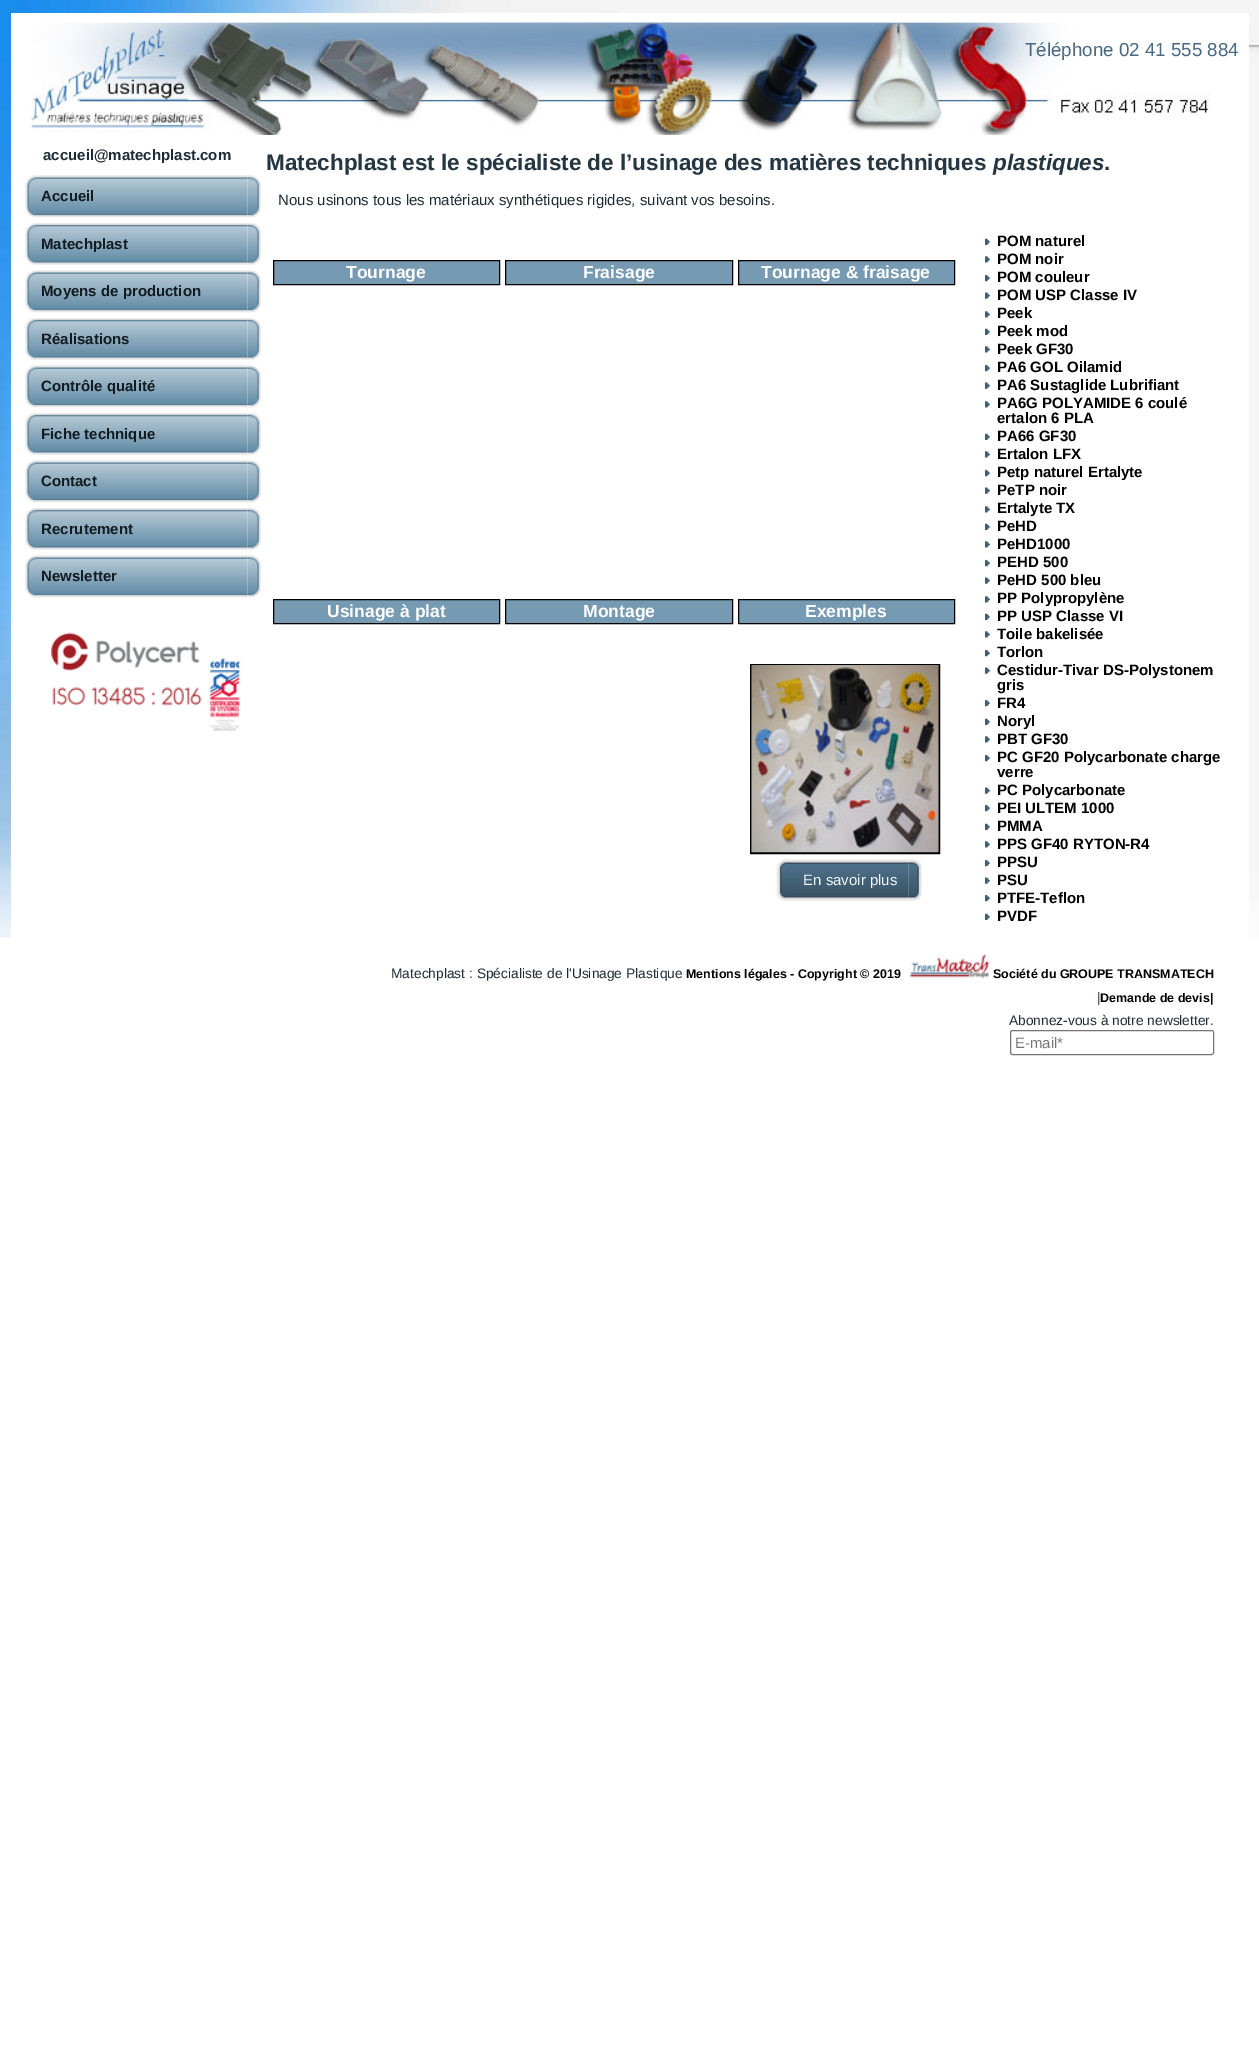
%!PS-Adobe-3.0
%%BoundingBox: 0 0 1259 2045
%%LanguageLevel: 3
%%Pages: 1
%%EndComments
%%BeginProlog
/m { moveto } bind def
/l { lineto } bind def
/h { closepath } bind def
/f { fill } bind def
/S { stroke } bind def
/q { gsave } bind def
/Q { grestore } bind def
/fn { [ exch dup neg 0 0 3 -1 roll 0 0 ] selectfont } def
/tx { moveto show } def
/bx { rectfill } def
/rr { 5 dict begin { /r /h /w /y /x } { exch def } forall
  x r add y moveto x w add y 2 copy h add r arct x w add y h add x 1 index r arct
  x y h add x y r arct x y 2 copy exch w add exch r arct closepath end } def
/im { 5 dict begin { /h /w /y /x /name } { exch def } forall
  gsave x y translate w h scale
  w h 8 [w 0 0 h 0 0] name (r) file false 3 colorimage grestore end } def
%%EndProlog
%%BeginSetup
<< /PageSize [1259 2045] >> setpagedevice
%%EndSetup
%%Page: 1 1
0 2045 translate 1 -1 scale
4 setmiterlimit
1 setgray
0 0 1259 2045 bx
(image0.raw) 0 0 1259 938 im
11 13 1238 925 bx
(image1.raw) 31 22 967 1 im
(image2.raw) 31 22 1180 113 im
/LiberationSans-Regular 18.75 fn
0.282 0.412 0.498 setrgbcolor
(Téléphone 02 41 555 884) 1025 56 tx
/LiberationSans-Bold 15 fn
0.114 0.169 0.204 setrgbcolor
(accueil@matechplast.com) 43 160 tx
(image3.raw) 25 175 223 43 im
(image4.raw) 247 175 14 43 im
0.071 0.106 0.129 setrgbcolor
(Accueil) 41 201 tx
(image5.raw) 25 223 223 42 im
(image6.raw) 247 223 14 42 im
(Matechplast) 41 249 tx
(image3.raw) 25 270 223 43 im
(image4.raw) 247 270 14 43 im
(Moyens de production) 41 296 tx
(image5.raw) 25 318 223 42 im
(image6.raw) 247 318 14 42 im
(Réalisations) 41 344 tx
(image3.raw) 25 365 223 43 im
(image4.raw) 247 365 14 43 im
(Contrôle qualité) 41 391 tx
(image5.raw) 25 413 223 42 im
(image6.raw) 247 413 14 42 im
(Fiche technique) 41 439 tx
(image3.raw) 25 460 223 43 im
(image4.raw) 247 460 14 43 im
(Contact) 41 486 tx
(image5.raw) 25 508 223 42 im
(image6.raw) 247 508 14 42 im
(Recrutement) 41 534 tx
(image7.raw) 25 555 223 43 im
(image8.raw) 247 555 14 43 im
(Newsletter) 41 581 tx
(image9.raw) 50 632 191 100 im
/LiberationSans-Bold 22.5 fn
0.141 0.212 0.255 setrgbcolor
(Matechplast est le spécialiste de l’usinage des matières techniques) 266 170 tx
/LiberationSans-BoldItalic 22.5 fn
(plastiques) 993 170 tx
/LiberationSans-Bold 22.5 fn
(.) 1104 170 tx
/LiberationSans-Regular 15 fn
0.114 0.169 0.204 setrgbcolor
(Nous usinons tous les matériaux synthétiques rigides, suivant vos besoins.) 278 205 tx
0.463 0.604 0.698 setrgbcolor
273.5 260.5 m 499.5 260.5 l 499.5 284.5 l 273.5 284.5 l h q f Q
0 setgray
S
/LiberationSans-Bold 17.5 fn
1 setgray
(Tournage) 346 278 tx
0.463 0.604 0.698 setrgbcolor
505.5 260.5 m 732.5 260.5 l 732.5 284.5 l 505.5 284.5 l h q f Q
0 setgray
S
1 setgray
(Fraisage) 583 278 tx
0.463 0.604 0.698 setrgbcolor
738.5 260.5 m 954.5 260.5 l 954.5 284.5 l 738.5 284.5 l h q f Q
0 setgray
S
1 setgray
(Tournage & fraisage) 761 278 tx
(image10.raw) 985 238 5 7 im
/LiberationSans-Bold 15 fn
0 setgray
(POM naturel) 997 246 tx
(image11.raw) 985 256 5 7 im
(POM noir) 997 264 tx
(image12.raw) 985 274 5 8 im
(POM couleur) 997 282 tx
(image13.raw) 985 292 5 7 im
(POM USP Classe IV) 997 300 tx
(image11.raw) 985 311 5 7 im
(Peek) 997 318 tx
(image10.raw) 985 328 5 7 im
(Peek mod) 997 336 tx
(image11.raw) 985 346 5 7 im
(Peek GF30) 997 354 tx
(image12.raw) 985 364 5 8 im
(PA6 GOL Oilamid) 997 372 tx
(image14.raw) 985 382 5 7 im
(PA6 Sustaglide Lubrifiant) 997 390 tx
(image11.raw) 985 401 5 7 im
(PA6G POLYAMIDE 6 coulé) 997 408 tx
(ertalon 6 PLA) 997 423 tx
(image10.raw) 985 433 5 7 im
(PA66 GF30) 997 441 tx
(image11.raw) 985 451 5 7 im
(Ertalon LFX) 997 459 tx
(image12.raw) 985 469 5 8 im
q
985 465 251 15 rectclip
(Petp naturel Ertalyte) 997 477 tx
Q
(image14.raw) 985 487 5 7 im
(PeTP noir) 997 495 tx
(image11.raw) 985 506 5 7 im
(Ertalyte TX) 997 513 tx
(image10.raw) 985 523 5 7 im
(PeHD) 997 531 tx
(image11.raw) 985 541 5 7 im
(PeHD1000) 997 549 tx
(image12.raw) 985 559 5 8 im
(PEHD 500) 997 567 tx
(image14.raw) 985 577 5 7 im
(PeHD 500 bleu) 997 585 tx
(image11.raw) 985 596 5 7 im
q
985 591 251 15 rectclip
(PP Polypropylène) 997 603 tx
Q
(image10.raw) 985 613 5 7 im
(PP USP Classe VI) 997 621 tx
(image11.raw) 985 631 5 7 im
(Toile bakelisée) 997 639 tx
(image12.raw) 985 649 5 8 im
(Torlon) 997 657 tx
(image14.raw) 985 667 5 7 im
(Cestidur-Tivar DS-Polystonem) 997 675 tx
(gris) 997 690 tx
(image12.raw) 985 699 5 8 im
(FR4) 997 708 tx
(image10.raw) 985 718 5 7 im
(Noryl) 997 726 tx
(image11.raw) 985 736 5 7 im
(PBT GF30) 997 744 tx
(image12.raw) 985 754 5 8 im
(PC GF20 Polycarbonate charge) 997 762 tx
(verre) 997 777 tx
(image14.raw) 985 787 5 7 im
(PC Polycarbonate) 997 795 tx
(image12.raw) 985 804 5 8 im
(PEI ULTEM 1000) 997 813 tx
(image10.raw) 985 823 5 7 im
(PMMA) 997 831 tx
(image11.raw) 985 841 5 7 im
(PPS GF40 RYTON-R4) 997 849 tx
(image12.raw) 985 859 5 8 im
(PPSU) 997 867 tx
(image14.raw) 985 877 5 7 im
(PSU) 997 885 tx
(image12.raw) 985 894 5 8 im
(PTFE-Teflon) 997 903 tx
(image10.raw) 985 913 5 7 im
(PVDF) 997 921 tx
0.463 0.604 0.698 setrgbcolor
273.5 599.5 m 499.5 599.5 l 499.5 623.5 l 273.5 623.5 l h q f Q
0 setgray
S
/LiberationSans-Bold 17.5 fn
1 setgray
(Usinage à plat) 327 617 tx
0.463 0.604 0.698 setrgbcolor
505.5 599.5 m 732.5 599.5 l 732.5 623.5 l 505.5 623.5 l h q f Q
0 setgray
S
1 setgray
(Montage) 583 617 tx
0.463 0.604 0.698 setrgbcolor
738.5 599.5 m 954.5 599.5 l 954.5 623.5 l 738.5 623.5 l h q f Q
0 setgray
S
1 setgray
(Exemples) 805 617 tx
0 setgray
750.5 664.5 189 189 rectstroke
751 665 188 188 bx
(image15.raw) 751 665 188 188 im
(image16.raw) 776 859 133 42 im
(image17.raw) 908 859 14 42 im
/LiberationSans-Regular 15 fn
0.949 0.961 0.973 setrgbcolor
(En savoir plus) 803 885 tx
/LiberationSans-Regular 13.75 fn
0.114 0.169 0.204 setrgbcolor
(Matechplast : Spécialiste de l'Usinage Plastique) 391 978 tx
/LiberationSans-Bold 12.5 fn
0 setgray
(Mentions légales - Copyright © 2019) 686 978 tx
(image18.raw) 909 953 80 26 im
(Société du GROUPE TRANSMATECH) 993 978 tx
/LiberationSans-Regular 13.75 fn
0.114 0.169 0.204 setrgbcolor
(|) 1097 1002 tx
/LiberationSans-Bold 12.5 fn
0 setgray
(Demande de devis|) 1100 1002 tx
/LiberationSans-Regular 13.75 fn
0.114 0.169 0.204 setrgbcolor
(Abonnez-vous à notre newsletter.) 1009 1025 tx
0.463 setgray
1010.5 1030.5 203 24 2 rr S
/LiberationSans-Regular 15 fn
0.459 setgray
(E-mail*) 1015 1048 tx
showpage
%%EOF
